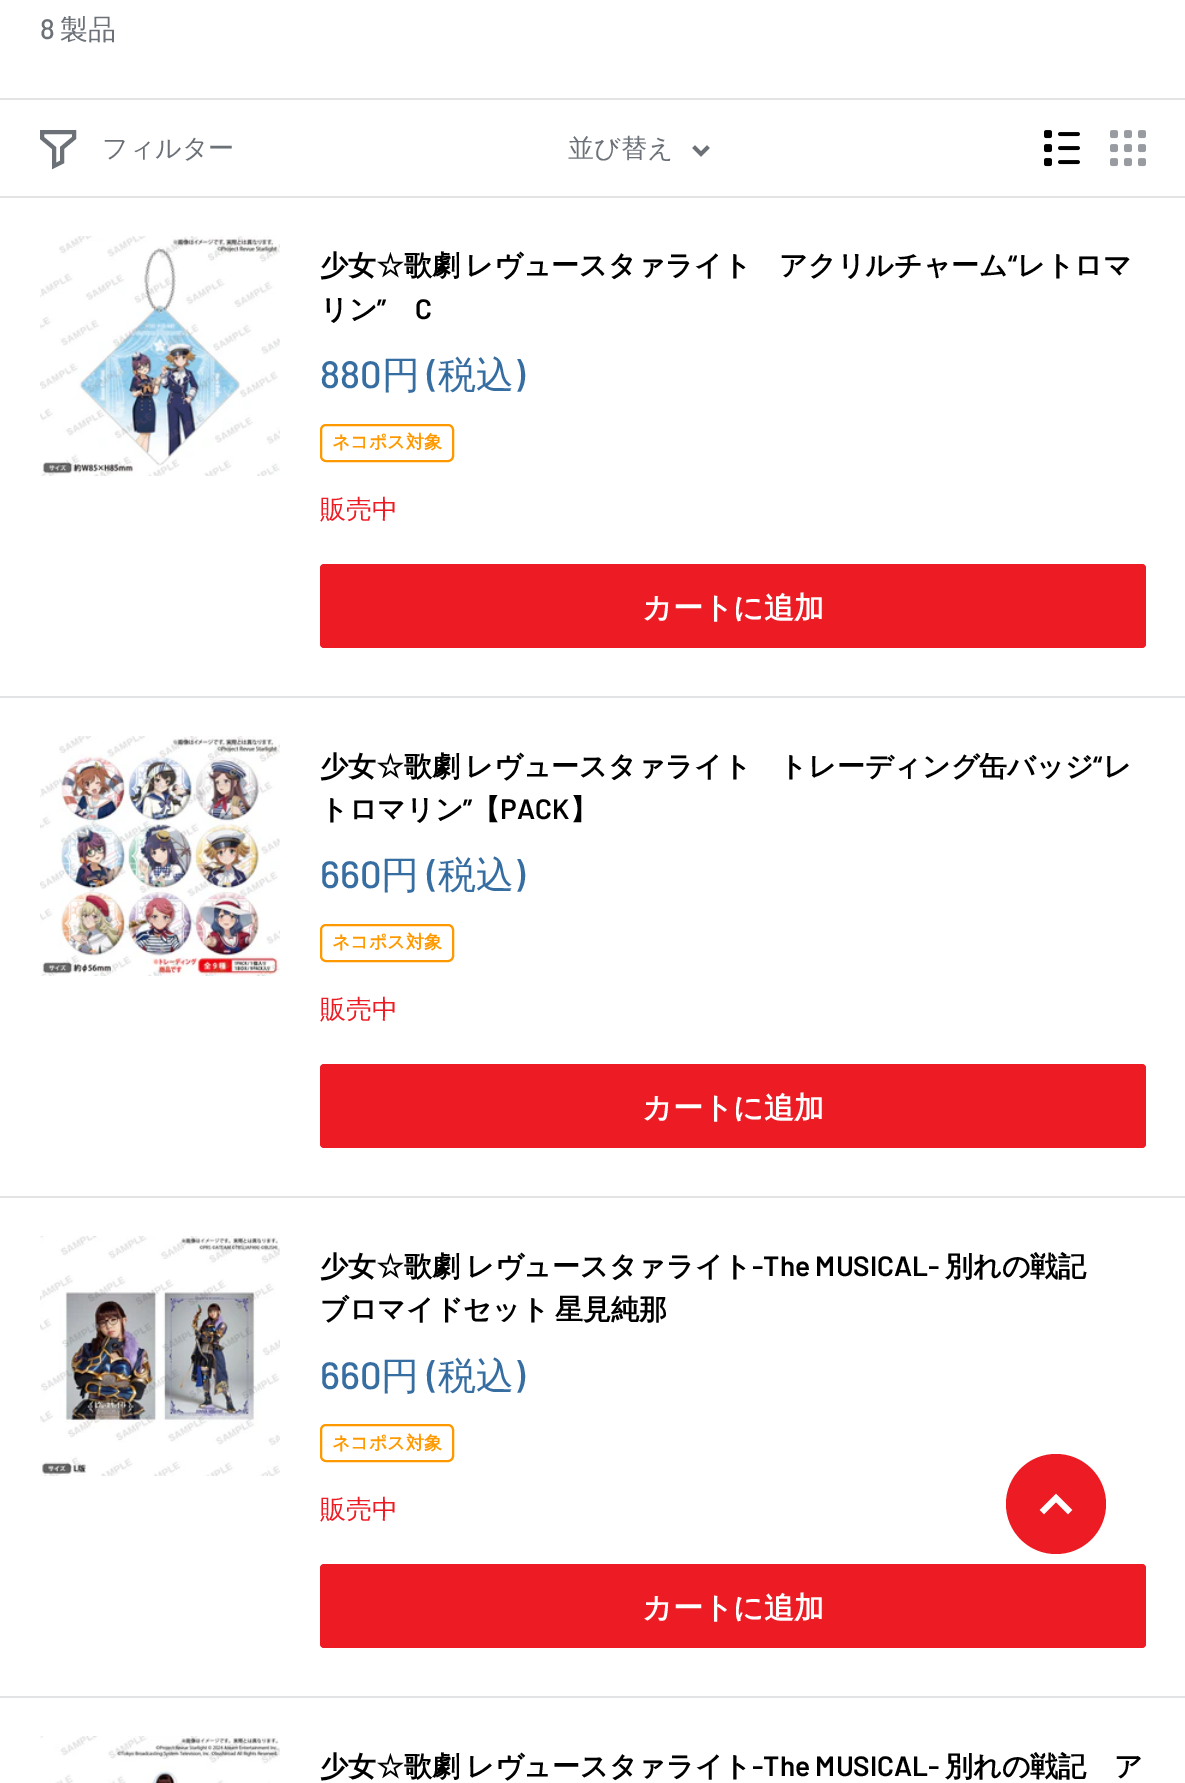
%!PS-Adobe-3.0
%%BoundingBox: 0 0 1185 1783
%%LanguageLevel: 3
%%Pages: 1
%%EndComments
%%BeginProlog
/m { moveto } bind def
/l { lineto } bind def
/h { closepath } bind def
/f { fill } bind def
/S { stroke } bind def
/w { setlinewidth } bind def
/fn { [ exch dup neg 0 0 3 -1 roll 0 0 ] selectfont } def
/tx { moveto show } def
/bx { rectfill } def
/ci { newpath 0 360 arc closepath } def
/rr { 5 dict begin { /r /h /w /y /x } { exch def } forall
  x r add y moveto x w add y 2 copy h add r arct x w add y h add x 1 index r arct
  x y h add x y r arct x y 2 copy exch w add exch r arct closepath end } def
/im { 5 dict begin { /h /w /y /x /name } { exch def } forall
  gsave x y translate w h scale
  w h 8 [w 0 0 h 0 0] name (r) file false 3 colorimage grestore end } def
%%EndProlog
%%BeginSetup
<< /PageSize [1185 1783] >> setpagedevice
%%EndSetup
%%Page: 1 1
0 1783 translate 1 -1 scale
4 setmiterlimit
1 setgray
0 0 1185 1783 bx
/Barlow-Medium 28 fn
0.42 0.443 0.467 setrgbcolor
(8) 40 39 tx
/WenQuanYiZenHei-Medium 28 fn
(製品) 60 39 tx
0.882 0.89 0.894 setrgbcolor
0 98 1185 2 bx
0 196 1185 2 bx
0.42 0.443 0.467 setrgbcolor
4 w
2 setlinecap
74 138 m 62 148 l 62 162 l 54 166 l 54 148 l 42 138 l 42 132 l 74 132 l h S
/WenQuanYiZenHei-Medium 26 fn
(フィルター) 102 157 tx
(並び替え) 568 157 tx
3.8 w
707 148 m 701 154 l 695 148 l S
(image0.raw) 1044 130 36 37 im
(image1.raw) 1110 130 36 37 im
(image2.raw) 40 236 240 240 im
/WenQuanYiZenHei-Bold 28 fn
0 setgray
320 275 m -3 0 32 (少女☆歌劇 レヴュースタァライト　アクリルチャーム) widthshow
/Barlow-SemiBold 28 fn
(“) 1008 275 tx
/WenQuanYiZenHei-Bold 28 fn
(レトロマ) 1017 275 tx
(リン) 320 319 tx
/Barlow-SemiBold 28 fn
(”) 377 319 tx
(C) 415 319 tx
/Barlow-Medium 38 fn
0.216 0.431 0.635 setrgbcolor
(880) 320 388 tx
/WenQuanYiZenHei-Medium 38 fn
(円) 382 388 tx
/Barlow-Medium 38 fn
(\() 427 388 tx
/WenQuanYiZenHei-Medium 38 fn
(税込) 438 388 tx
/Barlow-Medium 38 fn
(\)) 514 388 tx
1 0.6 0 setrgbcolor
2 w
0 setlinecap
321 425 132 36 5 rr S
/WenQuanYiZenHei-Bold 18 fn
(ネコポス対象) 332 448 tx
/WenQuanYiZenHei-Medium 26 fn
0.929 0.11 0.141 setrgbcolor
(販売中) 320 518 tx
320 564 826 84 4 rr f
/WenQuanYiZenHei-Bold 30 fn
1 setgray
(カートに追加) 642 618 tx
0.882 0.89 0.894 setrgbcolor
0 696 1185 2 bx
(image3.raw) 40 736 240 240 im
/WenQuanYiZenHei-Bold 28 fn
0 setgray
320 776 m -3 0 32 (少女☆歌劇 レヴュースタァライト　トレーディング缶バッジ) widthshow
/Barlow-SemiBold 28 fn
(“) 1093 776 tx
/WenQuanYiZenHei-Bold 28 fn
(レ) 1103 776 tx
(トロマリン) 320 819 tx
/Barlow-SemiBold 28 fn
(”) 463 819 tx
/WenQuanYiZenHei-Bold 28 fn
(【) 472 819 tx
/Barlow-SemiBold 28 fn
(PACK) 500 819 tx
/WenQuanYiZenHei-Bold 28 fn
(】) 570 819 tx
/Barlow-Medium 38 fn
0.216 0.431 0.635 setrgbcolor
(660) 320 888 tx
/WenQuanYiZenHei-Medium 38 fn
(円) 381 888 tx
/Barlow-Medium 38 fn
(\() 427 888 tx
/WenQuanYiZenHei-Medium 38 fn
(税込) 438 888 tx
/Barlow-Medium 38 fn
(\)) 514 888 tx
1 0.6 0 setrgbcolor
321 925 132 36 5 rr S
/WenQuanYiZenHei-Bold 18 fn
(ネコポス対象) 332 948 tx
/WenQuanYiZenHei-Medium 26 fn
0.929 0.11 0.141 setrgbcolor
(販売中) 320 1018 tx
320 1064 826 84 4 rr f
/WenQuanYiZenHei-Bold 30 fn
1 setgray
(カートに追加) 642 1118 tx
0.882 0.89 0.894 setrgbcolor
0 1196 1185 2 bx
(image4.raw) 40 1236 240 240 im
/WenQuanYiZenHei-Bold 28 fn
0 setgray
(少女☆歌劇) 320 1276 tx
(レヴュースタァライト) 466 1276 tx
/Barlow-SemiBold 28 fn
(-The MUSICAL-) 752 1276 tx
/WenQuanYiZenHei-Bold 28 fn
(別れの戦記) 945 1276 tx
320 1319 m -3 0 32 (ブロマイドセット 星見純那) widthshow
/Barlow-Medium 38 fn
0.216 0.431 0.635 setrgbcolor
(660) 320 1389 tx
/WenQuanYiZenHei-Medium 38 fn
(円) 381 1389 tx
/Barlow-Medium 38 fn
(\() 427 1389 tx
/WenQuanYiZenHei-Medium 38 fn
(税込) 438 1389 tx
/Barlow-Medium 38 fn
(\)) 514 1389 tx
1 0.6 0 setrgbcolor
321 1425 132 36 5 rr S
/WenQuanYiZenHei-Bold 18 fn
(ネコポス対象) 332 1449 tx
/WenQuanYiZenHei-Medium 26 fn
0.929 0.11 0.141 setrgbcolor
(販売中) 320 1518 tx
320 1564 826 84 4 rr f
/WenQuanYiZenHei-Bold 30 fn
1 setgray
(カートに追加) 642 1618 tx
0.882 0.89 0.894 setrgbcolor
0 1696 1185 2 bx
(image5.raw) 40 1736 240 47 im
/WenQuanYiZenHei-Bold 28 fn
0 setgray
(少女☆歌劇) 320 1776 tx
(レヴュースタァライト) 466 1776 tx
/Barlow-SemiBold 28 fn
(-The MUSICAL-) 752 1776 tx
/WenQuanYiZenHei-Bold 28 fn
(別れの戦記　ア) 945 1776 tx
0.929 0.11 0.141 setrgbcolor
1056 1504 50 ci f
1 setgray
6 w
2 setlinecap
1044 1510 m 1056 1498 l 1068 1510 l S
showpage
%%EOF
